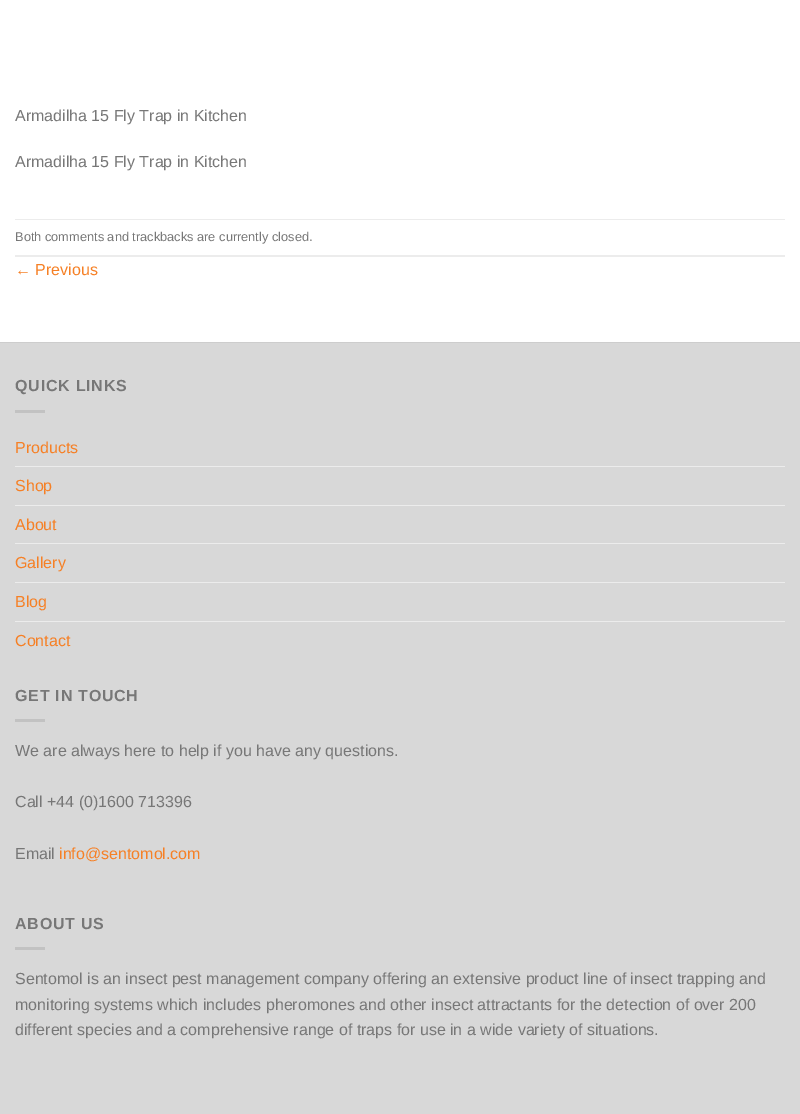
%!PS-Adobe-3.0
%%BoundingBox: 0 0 800 1114
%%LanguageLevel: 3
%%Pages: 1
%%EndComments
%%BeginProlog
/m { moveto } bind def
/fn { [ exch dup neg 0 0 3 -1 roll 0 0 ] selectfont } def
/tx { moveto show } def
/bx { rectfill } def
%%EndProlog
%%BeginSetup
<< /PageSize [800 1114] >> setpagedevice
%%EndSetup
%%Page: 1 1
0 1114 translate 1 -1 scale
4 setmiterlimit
1 setgray
0 0 800 1114 bx
/LiberationSans-Regular 16 fn
0.467 setgray
(Armadilha 15 Fly Trap in Kitchen) 15 121 tx
(Armadilha 15 Fly Trap in Kitchen) 15 167 tx
0.925 setgray
15 219 770 1 bx
15 255 770 2 bx
/LiberationSans-Regular 12.8 fn
0.467 setgray
(Both comments and trackbacks are currently closed.) 15 241 tx
/LiberationSans-Regular 16 fn
0.965 0.502 0.145 setrgbcolor
(← Previous) 15 275 tx
0.847 setgray
0 343 800 771 bx
0.804 setgray
0 342 800 1 bx
/LiberationSans-Bold 16 fn
0.467 setgray
15 391 m 0.75 0 (QUICK LINKS) ashow
0.761 setgray
15 410 30 3 bx
/LiberationSans-Regular 16 fn
0.965 0.502 0.145 setrgbcolor
(Products) 15 453 tx
0.925 setgray
15 466 770 1 bx
0.965 0.502 0.145 setrgbcolor
(Shop) 15 491 tx
0.925 setgray
15 505 770 1 bx
0.965 0.502 0.145 setrgbcolor
(About) 15 530 tx
0.925 setgray
15 543 770 1 bx
0.965 0.502 0.145 setrgbcolor
(Gallery) 15 568 tx
0.925 setgray
15 582 770 1 bx
0.965 0.502 0.145 setrgbcolor
(Blog) 15 607 tx
0.925 setgray
15 621 770 1 bx
0.965 0.502 0.145 setrgbcolor
(Contact) 15 646 tx
/LiberationSans-Bold 16 fn
0.467 setgray
15 701 m 0.75 0 (GET IN TOUCH) ashow
0.761 setgray
15 719 30 3 bx
/LiberationSans-Regular 16 fn
0.467 setgray
(We are always here to help if you have any questions.) 15 756 tx
(Call +44 \(0\)1600 713396) 15 807 tx
(Email) 15 859 tx
0.965 0.502 0.145 setrgbcolor
(info@sentomol.com) 59 859 tx
/LiberationSans-Bold 16 fn
0.467 setgray
15 929 m 0.75 0 (ABOUT US) ashow
0.761 setgray
15 947 30 3 bx
/LiberationSans-Regular 16 fn
0.467 setgray
(Sentomol is an insect pest management company offering an extensive product line of insect trapping and) 15 984 tx
(monitoring systems which includes pheromones and other insect attractants for the detection of over 200) 15 1010 tx
(different species and a comprehensive range of traps for use in a wide variety of situations.) 15 1035 tx
showpage
%%EOF
